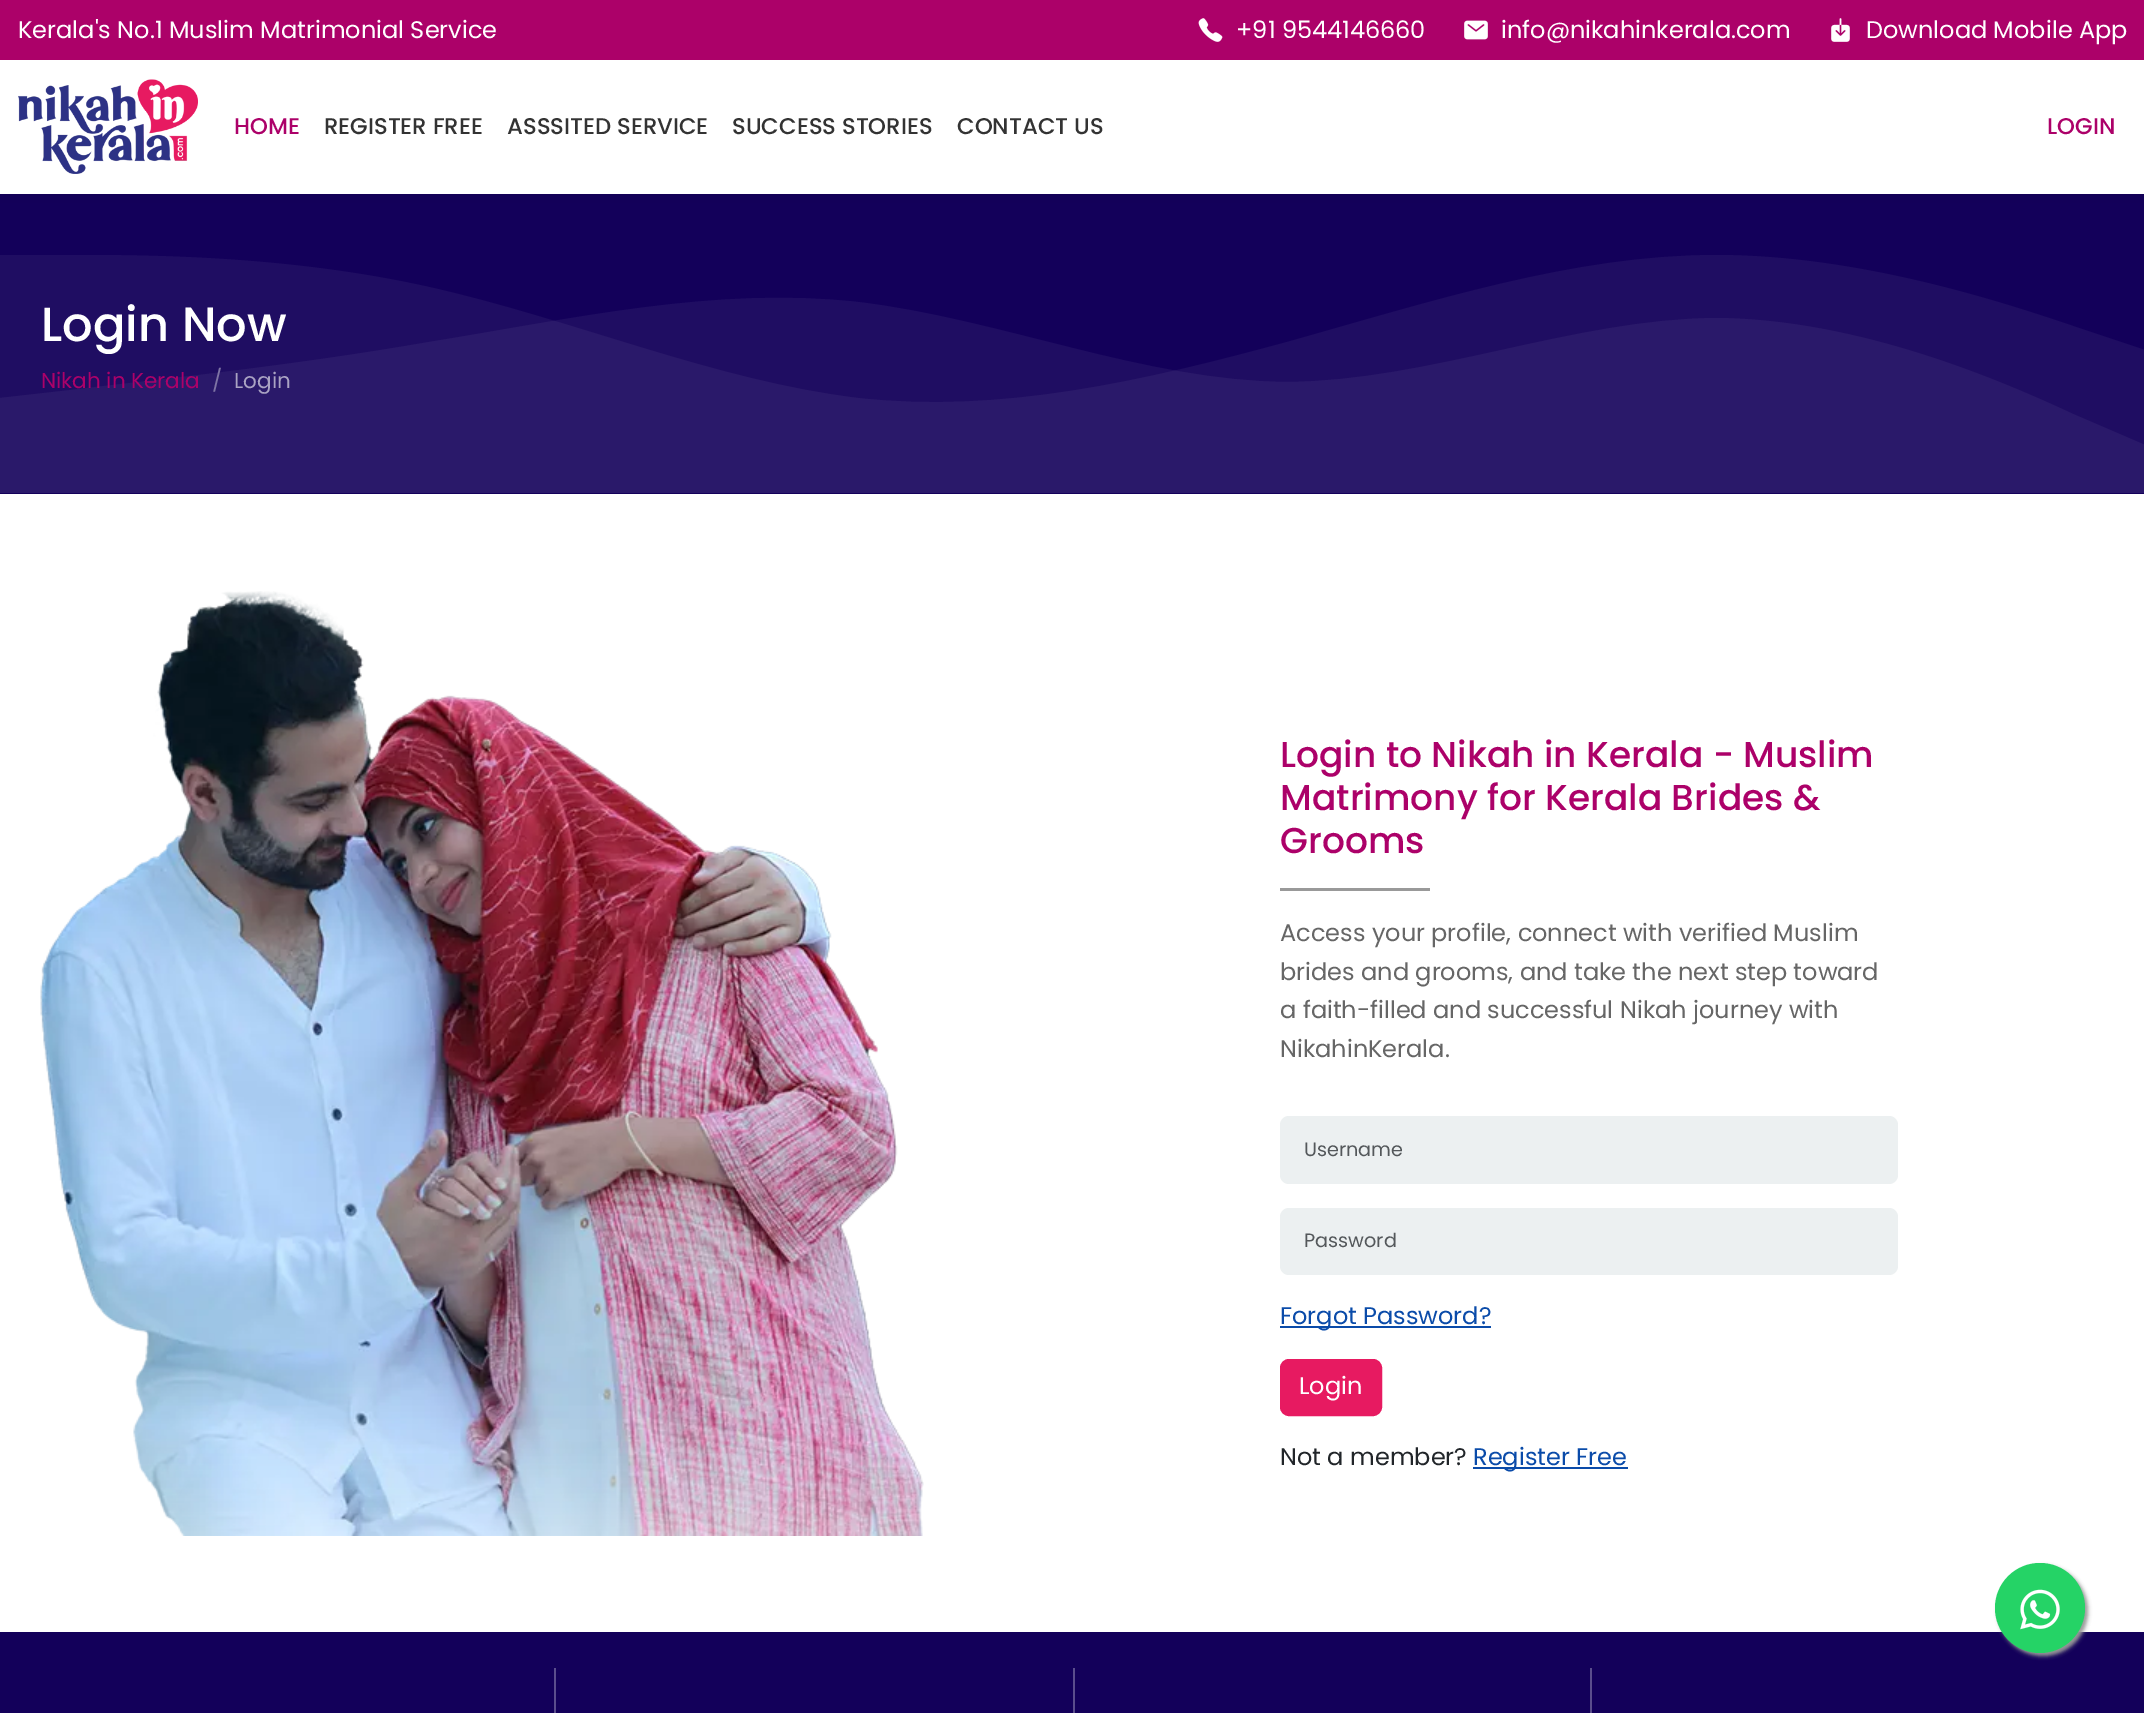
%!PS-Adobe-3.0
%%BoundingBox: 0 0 2144 1713
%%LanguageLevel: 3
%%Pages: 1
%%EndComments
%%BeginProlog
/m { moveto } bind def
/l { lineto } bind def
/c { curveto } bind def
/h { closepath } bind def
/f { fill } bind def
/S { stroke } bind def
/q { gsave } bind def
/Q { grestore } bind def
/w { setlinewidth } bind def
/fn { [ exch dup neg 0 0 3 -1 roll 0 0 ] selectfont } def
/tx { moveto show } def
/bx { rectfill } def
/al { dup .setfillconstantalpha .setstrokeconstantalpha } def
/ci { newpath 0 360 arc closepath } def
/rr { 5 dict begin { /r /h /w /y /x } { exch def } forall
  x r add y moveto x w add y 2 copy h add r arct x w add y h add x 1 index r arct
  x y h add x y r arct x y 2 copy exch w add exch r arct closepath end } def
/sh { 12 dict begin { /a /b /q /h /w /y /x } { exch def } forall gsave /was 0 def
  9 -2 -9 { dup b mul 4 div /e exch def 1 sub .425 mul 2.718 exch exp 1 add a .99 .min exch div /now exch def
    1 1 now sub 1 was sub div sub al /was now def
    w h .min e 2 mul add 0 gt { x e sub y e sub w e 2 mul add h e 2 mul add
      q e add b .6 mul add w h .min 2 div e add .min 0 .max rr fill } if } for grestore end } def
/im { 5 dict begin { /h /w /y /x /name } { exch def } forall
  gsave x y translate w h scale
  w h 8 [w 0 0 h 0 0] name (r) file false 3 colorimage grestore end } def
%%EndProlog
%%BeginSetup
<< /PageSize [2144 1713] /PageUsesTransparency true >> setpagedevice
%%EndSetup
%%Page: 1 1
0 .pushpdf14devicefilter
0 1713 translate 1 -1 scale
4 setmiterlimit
1 setgray
0 0 2144 1713 bx
0.075 0 0.353 setrgbcolor
0 194 2144 300 bx
0 setgray
0 0 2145 194 0 7.5 0.1 sh
0.675 0.004 0.412 setrgbcolor
0 0 2144 60 bx
/Poppins-Regular 24 fn
1 setgray
(Kerala's No.1 Muslim Matrimonial Service) 18 38 tx
(image0.raw) 1198 18 25 24 im
(+91 9544146660) 1236 38 tx
(image1.raw) 1464 20 24 20 im
(info@nikahinkerala.com) 1501 38 tx
(image2.raw) 1831 18 19 24 im
(Download Mobile App) 1866 38 tx
0 60 2144 134 bx
(image3.raw) 18 79 180 95 im
/Poppins-Medium 22.75 fn
0.675 0.004 0.412 setrgbcolor
(HOME) 234 134 tx
0.2 setgray
(REGISTER FREE) 324 134 tx
(ASSSITED SERVICE) 507 134 tx
(SUCCESS STORIES) 732 134 tx
(CONTACT US) 957 134 tx
0.675 0.004 0.412 setrgbcolor
(LOGIN) 2047 134 tx
0.122 0.051 0.384 setrgbcolor
0 255 m 71 255 l 143 255 286 255 429 287 c 572 319 715 381 858 398 c 1001 414 1144 381 1287 342 c 1430 302 1573 255 1716 255 c 1859 255 2002 302 2073 326 c 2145 350 l 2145 493 l 0 493 l h f
0.05 al
1 setgray
0 398 m 71 390 l 143 381 286 367 429 342 c 572 319 715 286 858 302 c 1001 319 1144 381 1287 382 c 1430 381 1573 319 1716 318 c 1859 319 2002 381 2073 414 c 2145 445 l 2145 493 l 0 493 l h f
/Poppins-Medium 48 fn
1 al
(Login Now) 41 341 tx
/Poppins-Regular 21.5 fn
0.675 0.004 0.412 setrgbcolor
(Nikah in Kerala) 41 388 tx
0.494 0.455 0.647 setrgbcolor
(/) 212 388 tx
0.667 0.639 0.765 setrgbcolor
(Login) 234 388 tx
(image4.raw) 40 591 884 945 im
/Poppins-Medium 36 fn
0.675 0.004 0.412 setrgbcolor
(Login to Nikah in Kerala - Muslim) 1280 767 tx
(Matrimony for Kerala Brides &) 1280 810 tx
(Grooms) 1280 853 tx
0.6 setgray
1280 888 150 3 bx
/Poppins-Regular 24 fn
0.4 setgray
(Access your profile, connect with verified Muslim) 1280 941 tx
(brides and grooms, and take the next step toward) 1280 980 tx
(a faith-filled and successful Nikah journey with) 1280 1018 tx
(NikahinKerala.) 1280 1057 tx
0.925 0.941 0.945 setrgbcolor
1280 1116 618 68 9 rr f
/Poppins-Regular 19.25 fn
0.329 0.345 0.357 setrgbcolor
(Username) 1304 1156 tx
0.925 0.941 0.945 setrgbcolor
1280 1208 618 67 9 rr f
0.329 0.345 0.357 setrgbcolor
(Password) 1304 1247 tx
0.039 0.294 0.663 setrgbcolor
1280 1326 211 2 bx
/Poppins-Regular 24 fn
(Forgot Password?) 1280 1324 tx
0.906 0.102 0.38 setrgbcolor
1281 1360 100 55 8 rr q f Q
2 w
S
1 setgray
(Login) 1299 1394 tx
0.129 0.145 0.161 setrgbcolor
(Not a member?) 1280 1465 tx
0.039 0.294 0.663 setrgbcolor
1473 1467 155 2 bx
(Register Free) 1473 1465 tx
0.075 0 0.353 setrgbcolor
0 1632 2144 81 bx
0.353 0.302 0.549 setrgbcolor
554 1668 2 45 bx
1073 1668 2 45 bx
1590 1668 2 45 bx
0.6 setgray
1998 1566 90 90 45 2 1 sh
0.145 0.827 0.4 setrgbcolor
2040 1608 45 ci f
(image5.raw) 2020 1589 40 41 im
.poppdf14devicefilter showpage
%%EOF
